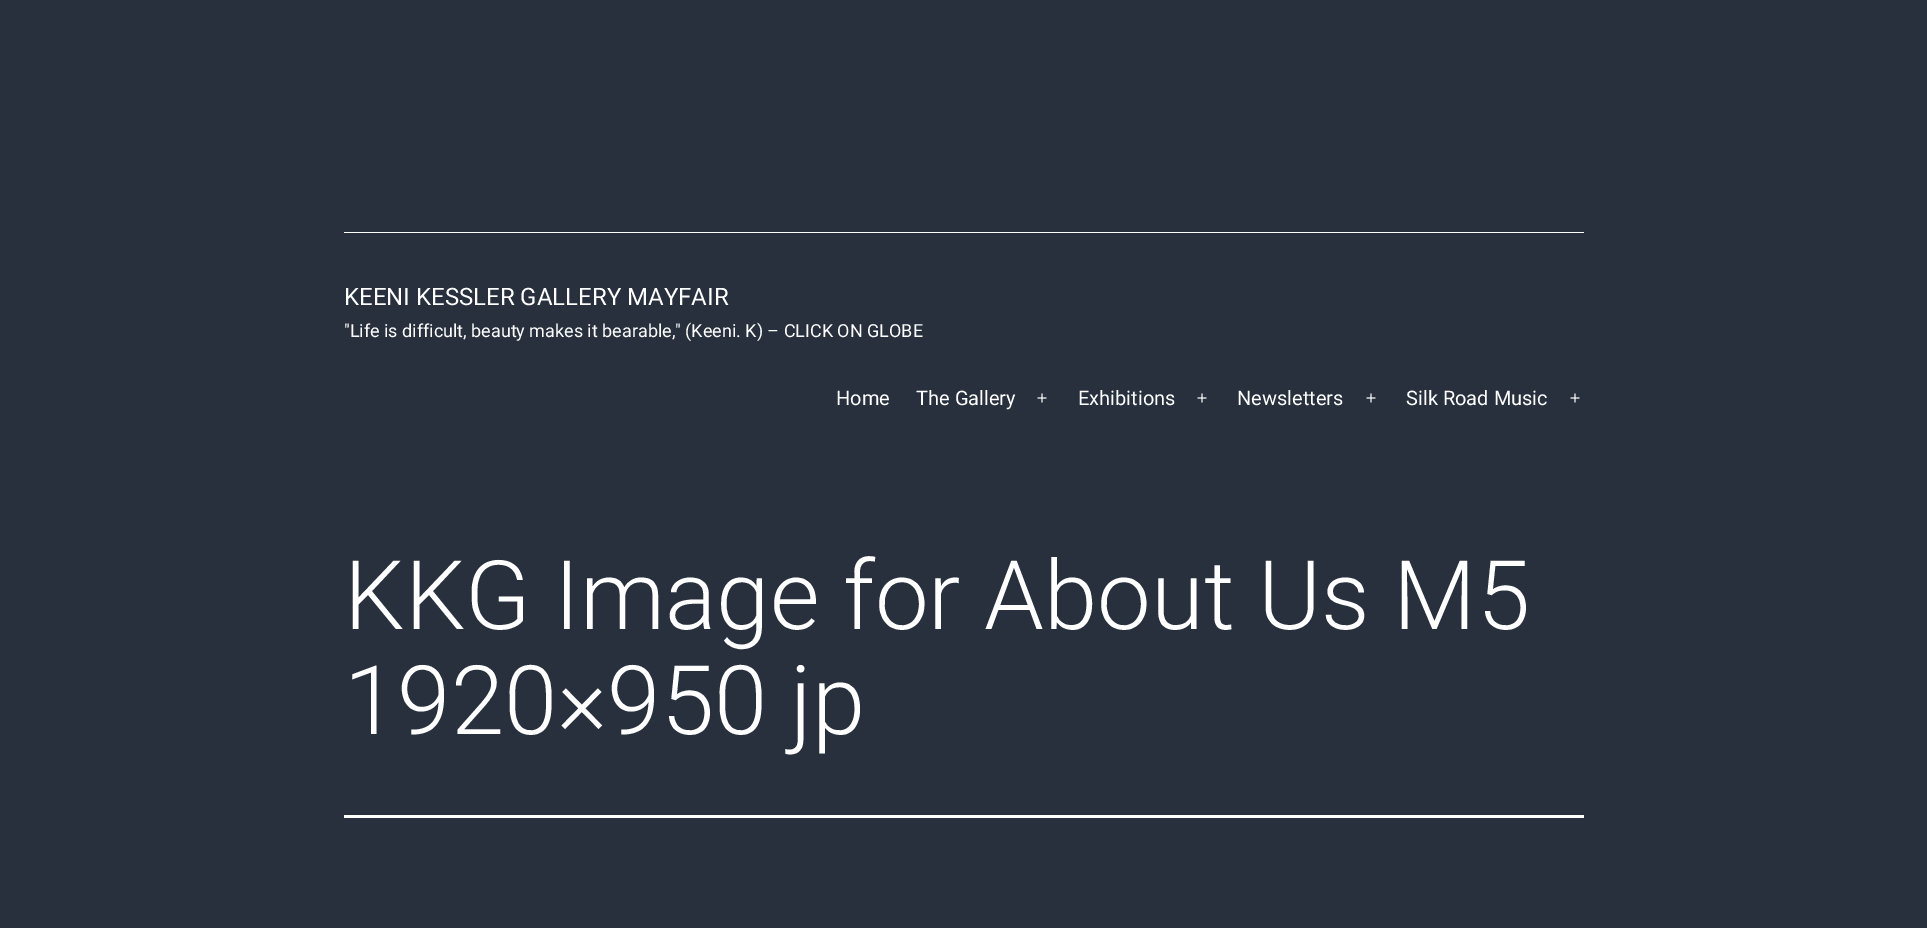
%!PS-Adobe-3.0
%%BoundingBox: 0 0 1927 928
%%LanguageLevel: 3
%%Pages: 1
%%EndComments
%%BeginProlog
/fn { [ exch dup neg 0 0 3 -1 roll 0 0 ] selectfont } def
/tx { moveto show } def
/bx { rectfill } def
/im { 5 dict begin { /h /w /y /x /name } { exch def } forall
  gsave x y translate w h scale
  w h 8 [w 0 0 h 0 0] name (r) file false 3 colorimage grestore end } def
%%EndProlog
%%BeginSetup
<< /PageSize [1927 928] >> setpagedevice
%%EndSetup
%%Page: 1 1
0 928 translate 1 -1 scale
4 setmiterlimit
0.157 0.188 0.239 setrgbcolor
0 0 1927 928 bx
1 setgray
344 232 1240 1 bx
/Roboto-Regular 24 fn
(KEENI KESSLER GALLERY MAYFAIR) 344 305 tx
/Roboto-Regular 18 fn
("Life is difficult, beauty makes it bearable," \(Keeni. K\) – CLICK ON GLOBE) 344 337 tx
/Roboto-Regular 20 fn
(Home) 836 405 tx
(The Gallery) 916 405 tx
(image0.raw) 1037 393 10 10 im
(Exhibitions) 1078 405 tx
(image0.raw) 1197 393 10 10 im
(Newsletters) 1237 405 tx
(image0.raw) 1366 393 10 10 im
(Silk Road Music) 1406 405 tx
(image0.raw) 1570 393 10 10 im
344 815 1240 3 bx
/Roboto-Light 96 fn
(KKG Image for About Us M5) 344 629 tx
(1920×950 jp) 344 734 tx
showpage
%%EOF
